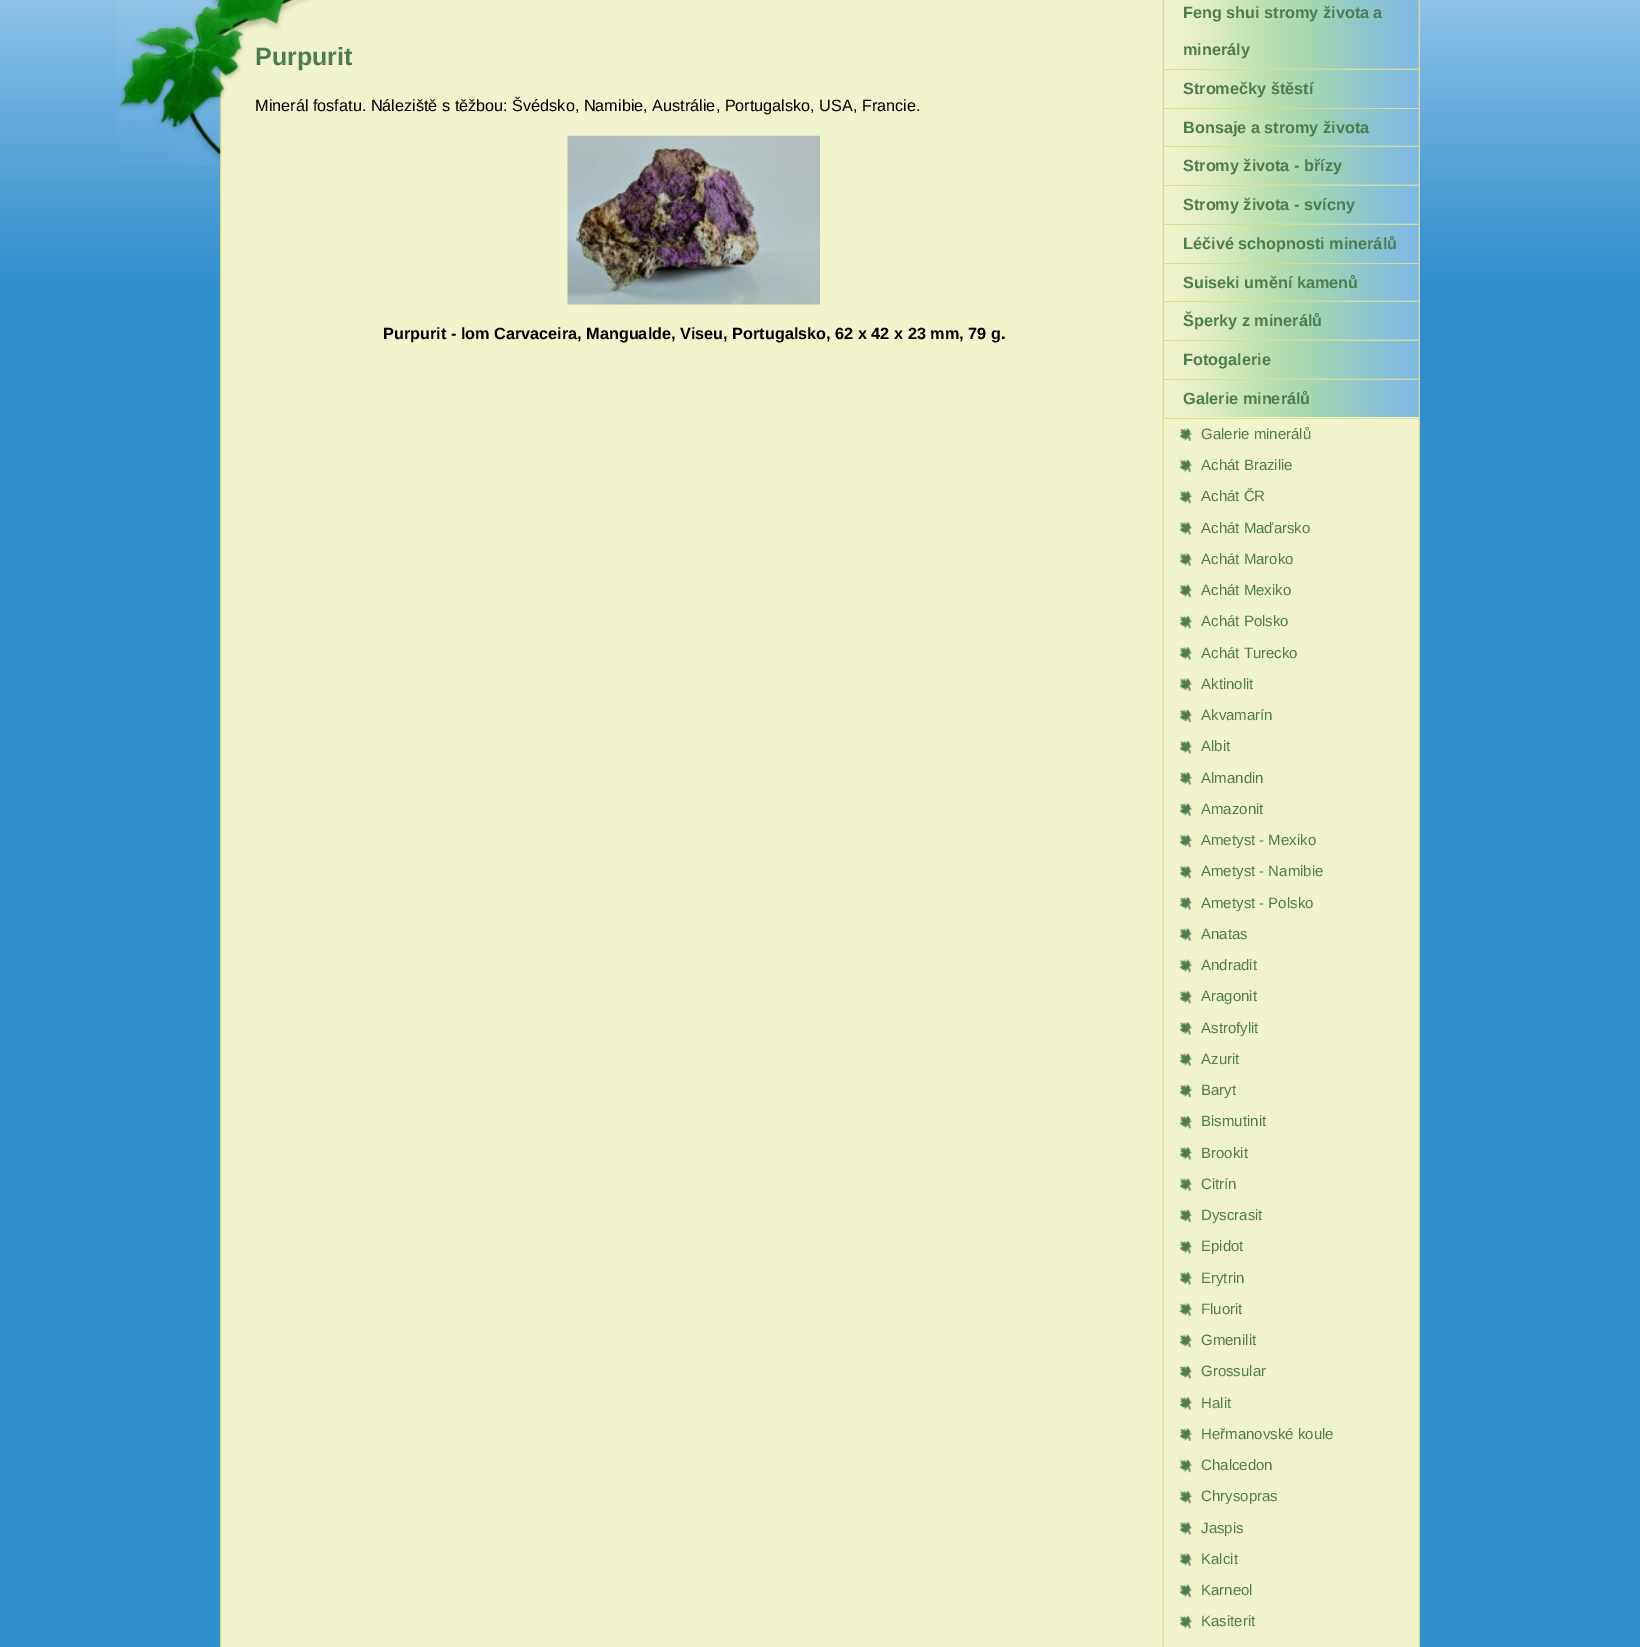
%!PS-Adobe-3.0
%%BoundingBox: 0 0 1640 1647
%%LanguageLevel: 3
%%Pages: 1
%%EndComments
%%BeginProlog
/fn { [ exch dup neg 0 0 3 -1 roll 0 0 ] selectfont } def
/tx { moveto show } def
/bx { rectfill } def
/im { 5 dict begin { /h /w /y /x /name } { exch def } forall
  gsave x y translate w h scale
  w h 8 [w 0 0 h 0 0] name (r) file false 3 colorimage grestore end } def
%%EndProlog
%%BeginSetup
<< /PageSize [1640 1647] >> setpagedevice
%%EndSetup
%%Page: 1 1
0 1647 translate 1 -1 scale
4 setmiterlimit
0.188 0.561 0.808 setrgbcolor
0 0 1640 1647 bx
(image0.raw) 0 0 1640 279 im
(image1.raw) 220 0 1200 1647 im
(image2.raw) 117 0 1049 166 im
/LiberationSans-Bold 25 fn
0.298 0.49 0.306 setrgbcolor
(Purpurit) 255 65 tx
/LiberationSans-Regular 16.25 fn
0 setgray
(Minerál fosfatu. Náleziště s těžbou: Švédsko, Namibie, Austrálie, Portugalsko, USA, Francie.) 255 111 tx
(image3.raw) 567 135 253 170 im
/LiberationSans-Bold 16.25 fn
(Purpurit - lom Carvaceira, Mangualde, Viseu, Portugalsko, 62 x 42 x 23 mm, 79 g.) 383 339 tx
(image4.raw) 1163 0 256 69 im
0.298 0.49 0.306 setrgbcolor
(Feng shui stromy života a) 1183 18 tx
(minerály) 1183 55 tx
(image5.raw) 1163 68 256 39 im
0.843 0.859 0.553 setrgbcolor
1164 69 255 1 bx
0.298 0.49 0.306 setrgbcolor
(Stromečky štěstí) 1183 94 tx
(image6.raw) 1163 107 256 39 im
0.843 0.859 0.553 setrgbcolor
1164 108 255 1 bx
0.298 0.49 0.306 setrgbcolor
(Bonsaje a stromy života) 1183 133 tx
(image7.raw) 1163 145 256 40 im
0.843 0.859 0.553 setrgbcolor
1164 146 255 1 bx
0.298 0.49 0.306 setrgbcolor
(Stromy života - břízy) 1183 171 tx
(image8.raw) 1163 184 256 40 im
0.843 0.859 0.553 setrgbcolor
1164 185 255 1 bx
0.298 0.49 0.306 setrgbcolor
(Stromy života - svícny) 1183 210 tx
(image9.raw) 1163 223 256 39 im
0.843 0.859 0.553 setrgbcolor
1164 224 255 1 bx
0.298 0.49 0.306 setrgbcolor
(Léčivé schopnosti minerálů) 1183 249 tx
(image10.raw) 1163 262 256 39 im
0.843 0.859 0.553 setrgbcolor
1164 263 255 1 bx
0.298 0.49 0.306 setrgbcolor
(Suiseki umění kamenů) 1183 288 tx
(image11.raw) 1163 300 256 40 im
0.843 0.859 0.553 setrgbcolor
1164 301 255 1 bx
0.298 0.49 0.306 setrgbcolor
(Šperky z minerálů) 1183 326 tx
(image8.raw) 1163 339 256 40 im
0.843 0.859 0.553 setrgbcolor
1164 340 255 1 bx
0.298 0.49 0.306 setrgbcolor
(Fotogalerie) 1183 365 tx
(image9.raw) 1163 378 256 39 im
0.843 0.859 0.553 setrgbcolor
1164 379 255 1 bx
0.298 0.49 0.306 setrgbcolor
(Galerie minerálů) 1183 404 tx
0.843 0.859 0.553 setrgbcolor
1164 418 256 1 bx
(image12.raw) 1180 428 13 14 im
/LiberationSans-Regular 15 fn
0.298 0.49 0.306 setrgbcolor
(Galerie minerálů) 1201 439 tx
(image13.raw) 1180 459 13 14 im
(Achát Brazilie) 1201 470 tx
(image14.raw) 1180 490 13 15 im
(Achát ČR) 1201 501 tx
(image15.raw) 1180 522 13 14 im
(Achát Maďarsko) 1201 533 tx
(image12.raw) 1180 553 13 14 im
(Achát Maroko) 1201 564 tx
(image13.raw) 1180 584 13 14 im
(Achát Mexiko) 1201 595 tx
(image14.raw) 1180 615 13 15 im
(Achát Polsko) 1201 626 tx
(image16.raw) 1180 647 13 14 im
(Achát Turecko) 1201 658 tx
(image12.raw) 1180 678 13 14 im
(Aktinolit) 1201 689 tx
(image13.raw) 1180 709 13 14 im
(Akvamarín) 1201 720 tx
(image14.raw) 1180 740 13 15 im
(Albit) 1201 751 tx
(image16.raw) 1180 772 13 14 im
(Almandin) 1201 783 tx
(image12.raw) 1180 803 13 14 im
(Amazonit) 1201 814 tx
(image13.raw) 1180 834 13 14 im
(Ametyst - Mexiko) 1201 845 tx
(image14.raw) 1180 865 13 15 im
(Ametyst - Namibie) 1201 876 tx
(image16.raw) 1180 897 13 14 im
(Ametyst - Polsko) 1201 908 tx
(image12.raw) 1180 928 13 14 im
(Anatas) 1201 939 tx
(image13.raw) 1180 959 13 14 im
(Andradit) 1201 970 tx
(image14.raw) 1180 990 13 15 im
(Aragonit) 1201 1001 tx
(image16.raw) 1180 1022 13 14 im
(Astrofylit) 1201 1033 tx
(image12.raw) 1180 1053 13 14 im
(Azurit) 1201 1064 tx
(image13.raw) 1180 1084 13 14 im
(Baryt) 1201 1095 tx
(image14.raw) 1180 1115 13 15 im
(Bismutinit) 1201 1126 tx
(image16.raw) 1180 1147 13 14 im
(Brookit) 1201 1158 tx
(image12.raw) 1180 1178 13 14 im
(Citrín) 1201 1189 tx
(image13.raw) 1180 1209 13 14 im
(Dyscrasit) 1201 1220 tx
(image14.raw) 1180 1240 13 15 im
(Epidot) 1201 1251 tx
(image16.raw) 1180 1272 13 14 im
(Erytrin) 1201 1283 tx
(image17.raw) 1180 1303 13 14 im
(Fluorit) 1201 1314 tx
(image13.raw) 1180 1334 13 14 im
(Gmenilit) 1201 1345 tx
(image14.raw) 1180 1365 13 15 im
(Grossular) 1201 1376 tx
(image16.raw) 1180 1397 13 14 im
(Halit) 1201 1408 tx
(image12.raw) 1180 1428 13 14 im
(Heřmanovské koule) 1201 1439 tx
(image13.raw) 1180 1459 13 14 im
(Chalcedon) 1201 1470 tx
(image14.raw) 1180 1490 13 15 im
(Chrysopras) 1201 1501 tx
(image16.raw) 1180 1522 13 14 im
(Jaspis) 1201 1533 tx
(image12.raw) 1180 1553 13 14 im
(Kalcit) 1201 1564 tx
(image13.raw) 1180 1584 13 14 im
(Karneol) 1201 1595 tx
(image14.raw) 1180 1615 13 15 im
(Kasiterit) 1201 1626 tx
showpage
%%EOF
